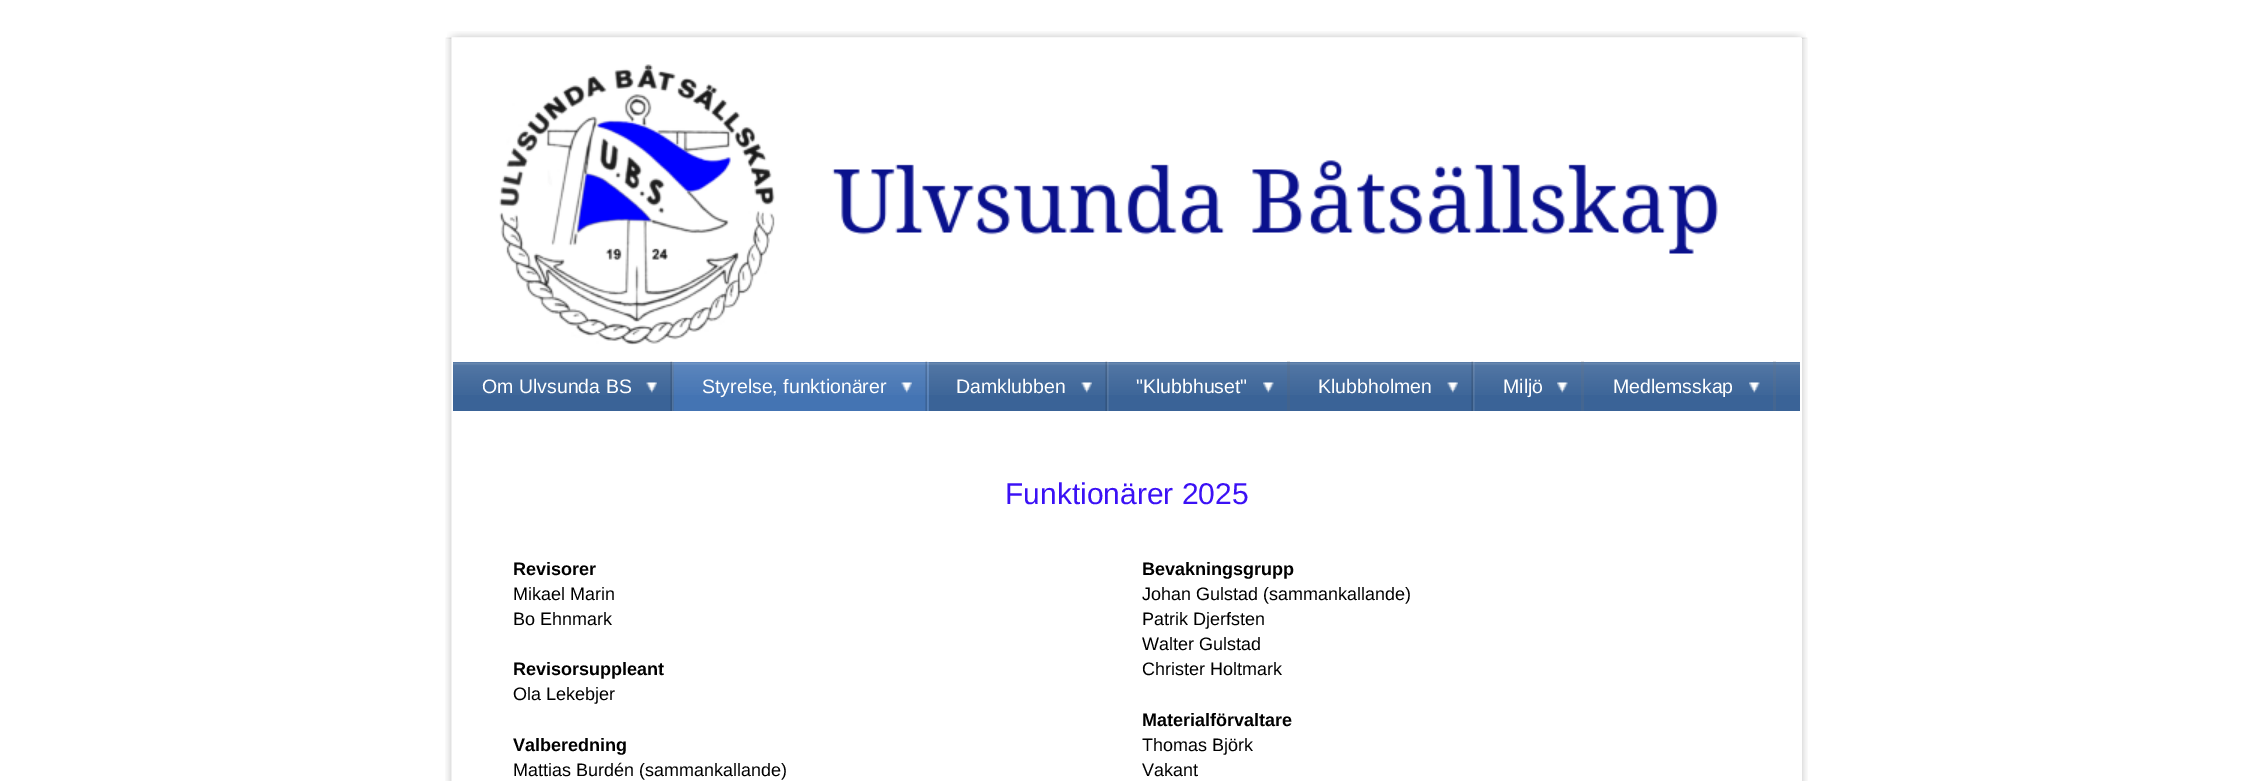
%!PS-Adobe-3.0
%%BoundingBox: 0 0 2253 781
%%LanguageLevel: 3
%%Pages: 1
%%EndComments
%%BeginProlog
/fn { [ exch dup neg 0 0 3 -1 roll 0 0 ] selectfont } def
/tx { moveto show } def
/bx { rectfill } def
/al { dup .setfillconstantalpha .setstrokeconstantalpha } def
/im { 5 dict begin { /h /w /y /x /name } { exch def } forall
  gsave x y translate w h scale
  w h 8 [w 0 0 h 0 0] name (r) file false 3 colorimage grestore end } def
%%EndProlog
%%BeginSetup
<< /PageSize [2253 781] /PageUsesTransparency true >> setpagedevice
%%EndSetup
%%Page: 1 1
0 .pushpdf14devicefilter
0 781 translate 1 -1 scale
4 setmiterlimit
1 setgray
0 0 2253 781 bx
(image0.raw) 447 31 1359 8 im
(image1.raw) 445 37 1363 744 im
1801 38 1 743 bx
(image2.raw) 499 64 276 281 im
(image3.raw) 832 160 886 94 im
0.227 0.388 0.592 setrgbcolor
1776 362 24 49 bx
(image4.raw) 1776 362 24 33 im
453 362 221 49 bx
(image5.raw) 453 362 221 33 im
(image6.raw) 670 361 4 50 im
(image7.raw) 646 382 11 11 im
/LiberationSans-Regular 19.5 fn
1 setgray
(Om Ulvsunda BS) 482 393 tx
0.267 0.455 0.702 setrgbcolor
674 362 255 49 bx
(image8.raw) 673 362 256 33 im
(image9.raw) 925 361 4 50 im
(image10.raw) 901 382 11 11 im
1 setgray
(Styrelse, funktionärer) 702 393 tx
0.227 0.388 0.592 setrgbcolor
929 362 847 49 bx
(image11.raw) 928 362 181 33 im
(image6.raw) 1105 361 4 50 im
(image12.raw) 1081 382 11 11 im
1 setgray
(Damklubben) 956 393 tx
(image13.raw) 1108 362 182 33 im
0.17 al
0.388 setgray
1287 361 3 50 bx
1 al
(image14.raw) 1263 382 11 11 im
1 setgray
("Klubbhuset") 1136 393 tx
(image15.raw) 1290 362 185 33 im
(image6.raw) 1471 361 4 50 im
(image7.raw) 1447 382 11 11 im
(Klubbholmen) 1318 393 tx
(image16.raw) 1474 362 110 33 im
0.17 al
0.455 setgray
1581 361 3 50 bx
1 al
(image17.raw) 1557 382 11 11 im
1 setgray
(Miljö) 1503 393 tx
(image18.raw) 1584 362 192 33 im
0.17 al
0.455 setgray
1773 361 3 50 bx
1 al
(image17.raw) 1749 382 11 11 im
1 setgray
(Medlemsskap) 1613 393 tx
/LiberationSans-Regular 30 fn
0.231 0.067 0.961 setrgbcolor
(Funktionärer 2025) 1005 504 tx
/LiberationSans-Bold 18 fn
0 setgray
(Revisorer) 513 575 tx
/LiberationSans-Regular 18 fn
(Mikael Marin) 513 600 tx
(Bo Ehnmark) 513 625 tx
/LiberationSans-Bold 18 fn
(Revisorsuppleant) 513 675 tx
/LiberationSans-Regular 18 fn
(Ola Lekebjer) 513 700 tx
/LiberationSans-Bold 18 fn
(Valberedning) 513 751 tx
/LiberationSans-Regular 18 fn
(Mattias Burdén \(sammankallande\)) 513 776 tx
/LiberationSans-Bold 18 fn
(Bevakningsgrupp) 1142 575 tx
/LiberationSans-Regular 18 fn
(Johan Gulstad \(sammankallande\)) 1142 600 tx
(Patrik Djerfsten) 1142 625 tx
(Walter Gulstad) 1142 650 tx
(Christer Holtmark) 1142 675 tx
/LiberationSans-Bold 18 fn
(Materialförvaltare) 1142 726 tx
/LiberationSans-Regular 18 fn
(Thomas Björk) 1142 751 tx
(Vakant) 1142 776 tx
.poppdf14devicefilter showpage
%%EOF
